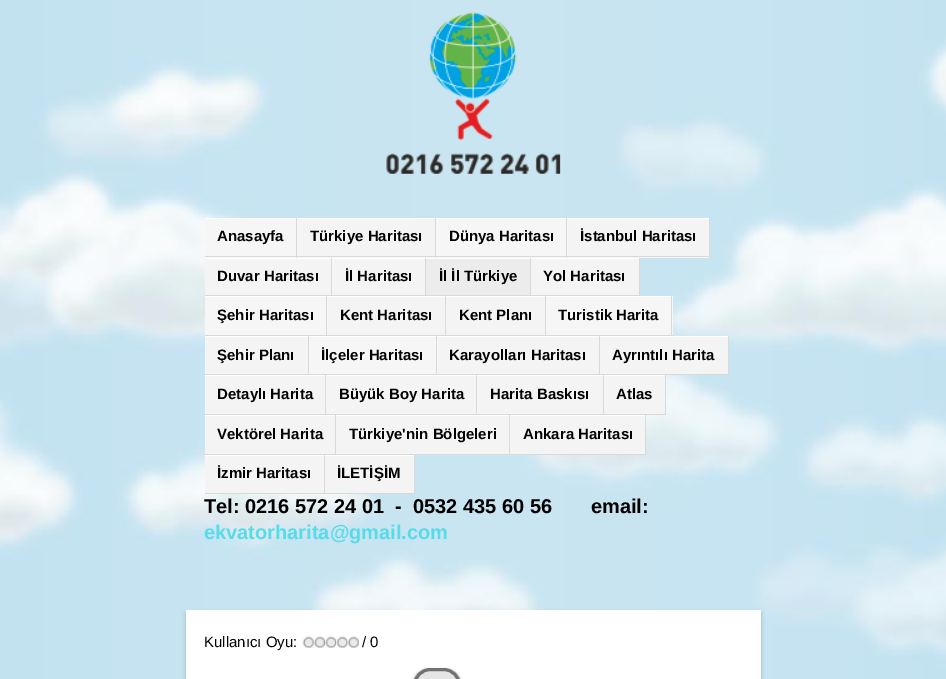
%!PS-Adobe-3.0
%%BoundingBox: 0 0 946 679
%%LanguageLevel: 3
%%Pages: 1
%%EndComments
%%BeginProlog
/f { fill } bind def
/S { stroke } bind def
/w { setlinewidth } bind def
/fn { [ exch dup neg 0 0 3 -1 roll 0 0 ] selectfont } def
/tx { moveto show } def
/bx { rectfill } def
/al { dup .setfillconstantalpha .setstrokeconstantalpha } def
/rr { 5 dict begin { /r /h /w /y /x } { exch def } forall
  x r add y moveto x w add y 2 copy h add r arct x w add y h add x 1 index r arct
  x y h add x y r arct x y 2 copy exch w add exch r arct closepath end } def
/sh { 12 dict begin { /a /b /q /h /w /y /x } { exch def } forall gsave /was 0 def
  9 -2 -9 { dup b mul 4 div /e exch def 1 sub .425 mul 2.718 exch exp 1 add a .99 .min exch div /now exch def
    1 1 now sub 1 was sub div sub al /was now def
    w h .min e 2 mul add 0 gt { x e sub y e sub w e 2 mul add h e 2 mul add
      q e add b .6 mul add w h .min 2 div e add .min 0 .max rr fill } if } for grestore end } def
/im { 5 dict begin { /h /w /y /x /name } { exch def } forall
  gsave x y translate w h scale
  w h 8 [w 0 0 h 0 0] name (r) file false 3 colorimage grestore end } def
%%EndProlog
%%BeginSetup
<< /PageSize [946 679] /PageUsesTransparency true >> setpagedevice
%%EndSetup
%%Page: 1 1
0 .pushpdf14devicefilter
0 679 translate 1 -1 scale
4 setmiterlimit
1 setgray
0 0 946 679 bx
(image0.raw) 0 0 946 679 im
(image1.raw) 386 12 175 162 im
0.965 setgray
205 219 93 39 bx
1 setgray
205 218 505 1 bx
0.851 setgray
296 218 1 40 bx
205 256 93 1 bx
/LiberationSans-Bold 15 fn
0 setgray
(Anasayfa) 217 241 tx
0.965 setgray
298 257 137 1 bx
0.957 setgray
298 219 137 37 bx
0.851 setgray
435 218 1 40 bx
298 256 138 1 bx
0 setgray
(Türkiye Haritası) 310 241 tx
0.965 setgray
436 219 132 39 bx
0.851 setgray
566 218 1 40 bx
436 256 132 1 bx
0 setgray
(Dünya Haritası) 449 241 tx
0.965 setgray
568 257 141 1 bx
0.957 setgray
568 219 141 37 bx
0.851 setgray
709 218 1 40 bx
568 256 142 1 bx
0 setgray
(İstanbul Haritası) 580 241 tx
0.965 setgray
332 259 1 36 bx
0.957 setgray
205 259 126 36 bx
1 setgray
205 258 435 1 bx
0.851 setgray
331 258 1 38 bx
205 295 128 1 bx
0 setgray
(Duvar Haritası) 217 281 tx
0.957 setgray
333 259 92 36 bx
0.851 setgray
425 258 1 38 bx
333 295 93 1 bx
0 setgray
(İl Haritası) 345 281 tx
0.925 setgray
426 259 104 36 bx
0.851 setgray
530 258 1 38 bx
426 295 105 1 bx
0 setgray
(İl İl Türkiye) 439 281 tx
0.957 setgray
531 259 108 36 bx
0.851 setgray
639 258 1 38 bx
531 295 109 1 bx
0 setgray
(Yol Haritası) 543 281 tx
0.965 setgray
205 297 123 38 bx
1 setgray
205 296 468 1 bx
0.851 setgray
326 296 1 40 bx
205 335 123 1 bx
0 setgray
(Şehir Haritası) 217 320 tx
0.965 setgray
328 297 117 1 bx
0.957 setgray
328 298 117 37 bx
0.851 setgray
445 296 1 40 bx
328 335 118 1 bx
0 setgray
(Kent Haritası) 340 320 tx
0.965 setgray
446 297 99 1 bx
0.957 setgray
446 298 99 37 bx
0.851 setgray
545 296 1 40 bx
446 335 100 1 bx
0 setgray
(Kent Planı) 459 320 tx
0.965 setgray
546 297 127 38 bx
0.851 setgray
671 296 1 40 bx
546 335 127 1 bx
0 setgray
(Turistik Harita) 558 320 tx
0.965 setgray
205 337 103 1 bx
0.957 setgray
205 338 103 36 bx
1 setgray
205 336 524 1 bx
0.851 setgray
308 336 1 39 bx
205 374 104 1 bx
0 setgray
(Şehir Planı) 217 360 tx
0.965 setgray
309 337 129 37 bx
0.851 setgray
436 336 1 39 bx
309 374 129 1 bx
0 setgray
(İlçeler Haritası) 321 360 tx
0.965 setgray
438 337 161 1 bx
0.957 setgray
438 338 161 36 bx
0.851 setgray
599 336 1 39 bx
438 374 162 1 bx
0 setgray
(Karayolları Haritası) 449 360 tx
0.965 setgray
600 337 128 1 bx
0.957 setgray
600 338 128 36 bx
0.851 setgray
728 336 1 39 bx
600 374 129 1 bx
0 setgray
(Ayrıntılı Harita) 612 360 tx
0.957 setgray
205 376 120 38 bx
1 setgray
205 375 461 1 bx
0.851 setgray
325 375 1 40 bx
205 414 121 1 bx
0 setgray
(Detaylı Harita) 217 399 tx
0.965 setgray
477 376 1 38 bx
0.957 setgray
326 376 150 38 bx
0.851 setgray
476 375 1 40 bx
326 414 152 1 bx
0 setgray
(Büyük Boy Harita) 339 399 tx
0.957 setgray
478 376 125 38 bx
0.851 setgray
603 375 1 40 bx
478 414 126 1 bx
0 setgray
(Harita Baskısı) 490 399 tx
0.957 setgray
604 376 61 38 bx
0.851 setgray
665 375 1 40 bx
604 414 62 1 bx
0 setgray
(Atlas) 616 399 tx
0.957 setgray
205 416 130 38 bx
1 setgray
205 415 441 1 bx
0.851 setgray
335 415 1 40 bx
205 454 131 1 bx
0 setgray
(Vektörel Harita) 217 439 tx
0.957 setgray
336 416 173 38 bx
0.851 setgray
509 415 1 40 bx
336 454 174 1 bx
0 setgray
(Türkiye'nin Bölgeleri) 349 439 tx
0.957 setgray
510 416 135 38 bx
0.851 setgray
645 415 1 40 bx
510 454 136 1 bx
0 setgray
(Ankara Haritası) 523 439 tx
0.957 setgray
205 456 119 37 bx
1 setgray
205 455 210 1 bx
0.851 setgray
324 455 1 39 bx
205 493 120 1 bx
0 setgray
(İzmir Haritası) 217 478 tx
0.957 setgray
325 456 89 37 bx
0.851 setgray
414 455 1 39 bx
325 493 90 1 bx
0 setgray
(İLETİŞİM) 337 478 tx
/LiberationSans-Bold 20 fn
(Tel: 0216 572 24 01  -  0532 435 60 56       email:) 204 513 tx
0.337 0.863 0.91 setrgbcolor
(ekvatorharita@gmail.com) 204 539 tx
0 setgray
186 613 575 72 0 2 0.2 sh
1 setgray
186 610 575 69 bx
/LiberationSans-Regular 15 fn
0 setgray
(Kullanıcı Oyu:) 204 647 tx
(image2.raw) 302 636 12 13 im
(image3.raw) 313 636 12 13 im
(image4.raw) 325 636 12 13 im
(image5.raw) 336 636 12 13 im
(image6.raw) 347 636 12 13 im
(/ 0) 362 647 tx
413 669 48 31 17.5 1 0.4 sh
0.898 setgray
413 668 48 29 17.5 rr f
0.5 al
0 setgray
3 w
414.5 669.5 45 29 16 rr S
.poppdf14devicefilter showpage
%%EOF
